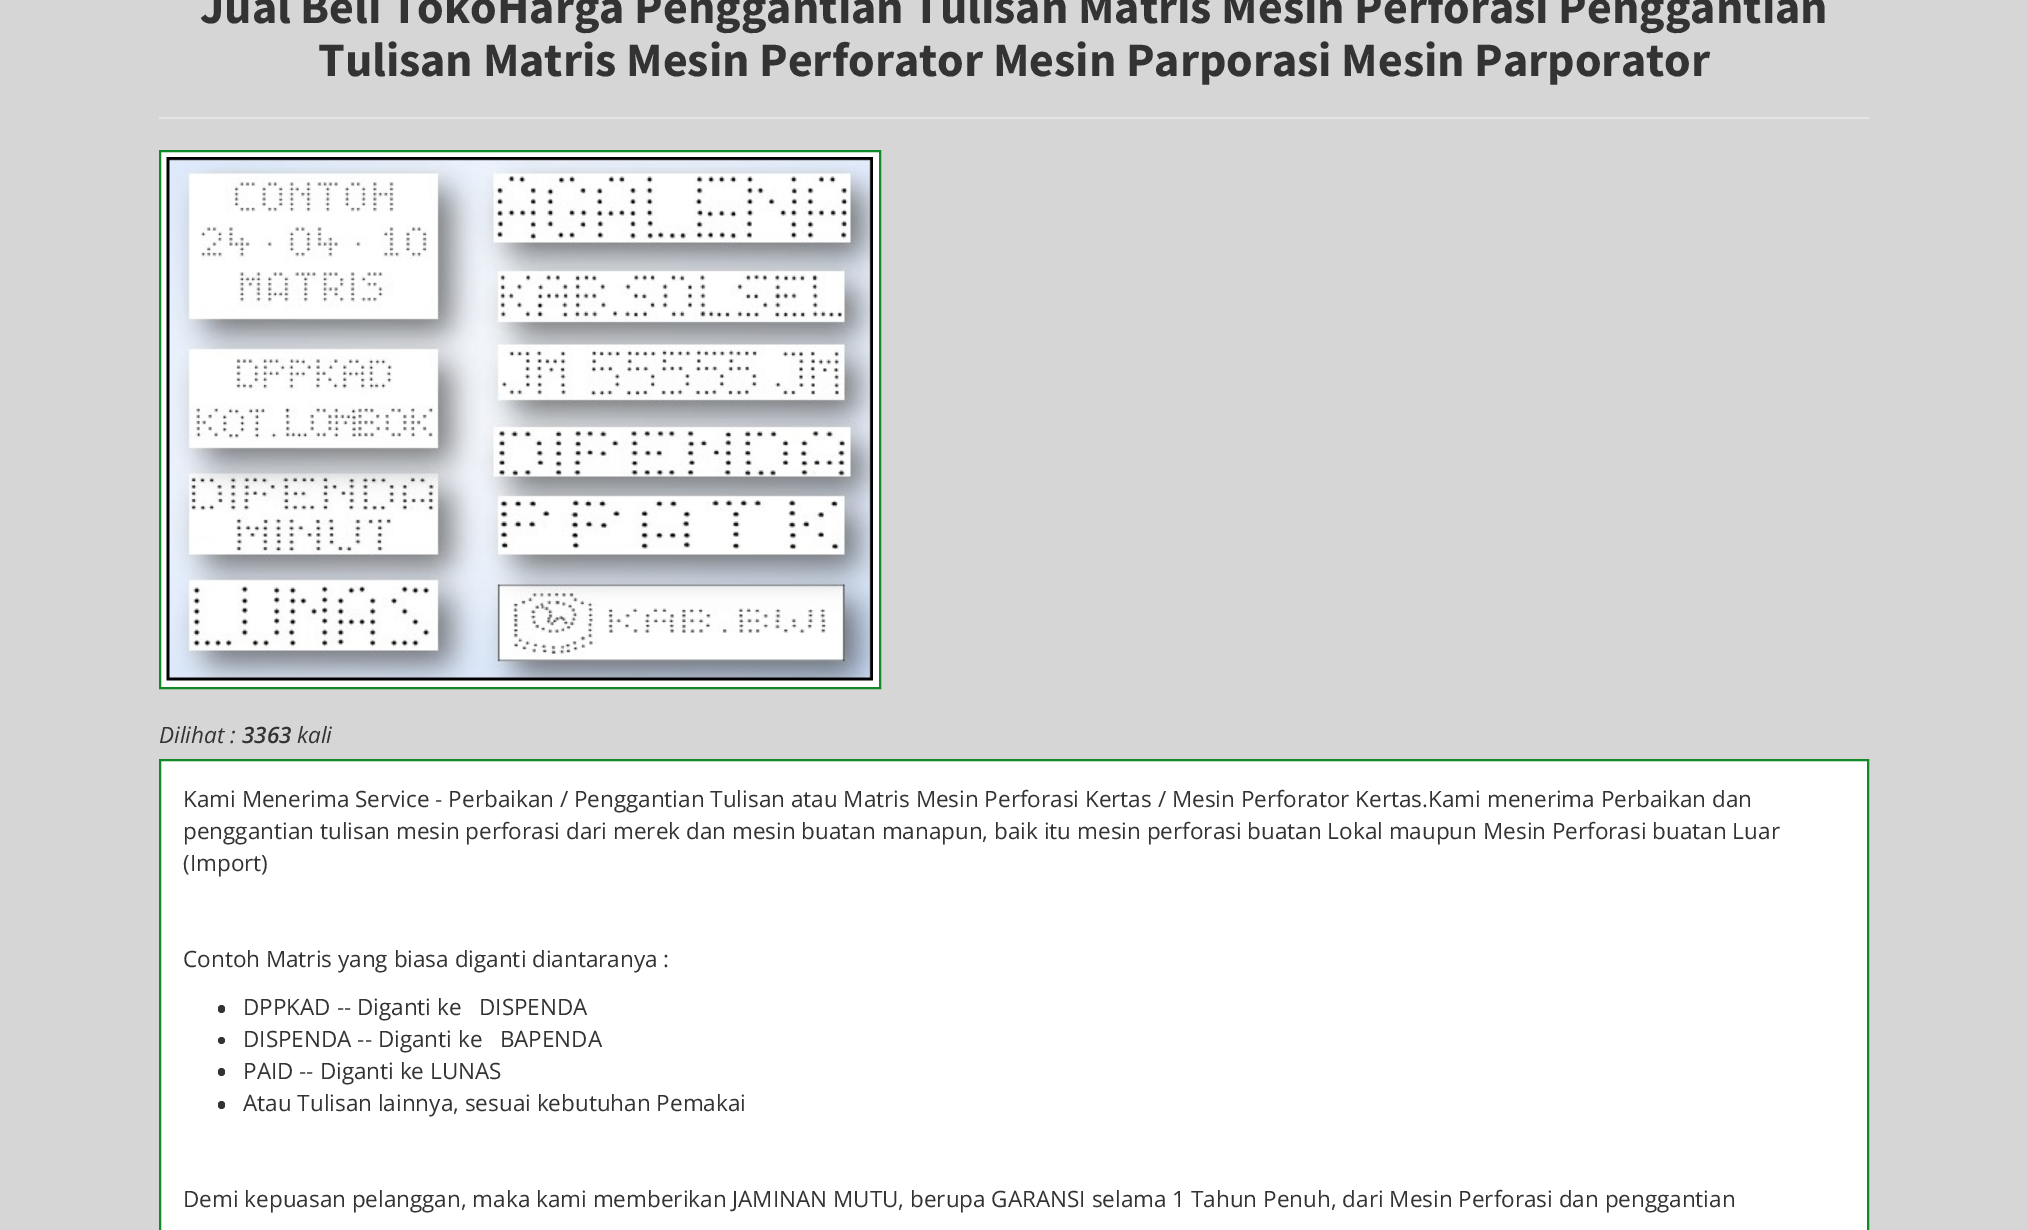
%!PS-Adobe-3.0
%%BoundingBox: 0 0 2027 1230
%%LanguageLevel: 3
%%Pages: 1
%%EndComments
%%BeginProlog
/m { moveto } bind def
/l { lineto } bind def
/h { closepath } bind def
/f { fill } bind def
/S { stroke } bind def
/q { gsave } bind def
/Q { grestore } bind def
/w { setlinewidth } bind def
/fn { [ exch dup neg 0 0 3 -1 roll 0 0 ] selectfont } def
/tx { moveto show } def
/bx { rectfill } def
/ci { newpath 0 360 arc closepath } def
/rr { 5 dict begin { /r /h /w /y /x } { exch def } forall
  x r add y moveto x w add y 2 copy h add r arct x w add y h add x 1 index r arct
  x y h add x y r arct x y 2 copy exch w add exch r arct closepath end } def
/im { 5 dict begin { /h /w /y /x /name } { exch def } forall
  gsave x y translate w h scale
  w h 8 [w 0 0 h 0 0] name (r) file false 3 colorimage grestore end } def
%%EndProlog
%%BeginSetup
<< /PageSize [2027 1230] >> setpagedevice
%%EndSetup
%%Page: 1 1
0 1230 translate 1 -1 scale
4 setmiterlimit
0.839 setgray
0 0 2027 1230 bx
0.902 setgray
159 117 1710 2 bx
/SourceSansPro-Bold 48 fn
0.2 setgray
(Jual Beli TokoHarga Penggantian Tulisan Matris Mesin Perforasi Penggantian) 200 23 tx
(Tulisan Matris Mesin Perforator Mesin Parporasi Mesin Parporator) 318 76 tx
1 setgray
160 151 m 880 151 l 880 688 l 160 688 l h q f Q
0.059 0.541 0.153 setrgbcolor
2 w
S
(image0.raw) 166 157 707 524 im
/OpenSans-Italic 22.5 fn
0.2 setgray
(Dilihat :) 159 743 tx
/OpenSans-SemiBoldItalic 22.5 fn
(3363) 242 743 tx
/OpenSans-Italic 22.5 fn
(kali) 297 743 tx
1 setgray
160 760 m 1868 760 l 1868 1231 l 160 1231 l h q f Q
0.059 0.541 0.153 setrgbcolor
S
/OpenSans-Regular 22.5 fn
0.2 setgray
(Kami Menerima Service - Perbaikan / Penggantian Tulisan atau Matris Mesin Perforasi Kertas / Mesin Perforator Kertas.Kami menerima Perbaikan dan) 183 807 tx
(penggantian tulisan mesin perforasi dari merek dan mesin buatan manapun, baik itu mesin perforasi buatan Lokal maupun Mesin Perforasi buatan Luar) 183 839 tx
(\(Import\)) 183 871 tx
(Contoh Matris yang biasa diganti diantaranya :) 183 967 tx
218 1005 7 8 3.5 rr f
(DPPKAD -- Diganti ke   DISPENDA) 243 1015 tx
221.5 1040.5 3.5 ci f
(DISPENDA -- Diganti ke   BAPENDA) 243 1047 tx
218 1068 7 8 3.5 rr f
(PAID -- Diganti ke LUNAS) 243 1079 tx
218 1101 7 8 3.5 rr f
(Atau Tulisan lainnya, sesuai kebutuhan Pemakai) 243 1111 tx
(Demi kepuasan pelanggan, maka kami memberikan JAMINAN MUTU, berupa GARANSI selama 1 Tahun Penuh, dari Mesin Perforasi dan penggantian) 183 1207 tx
showpage
%%EOF
